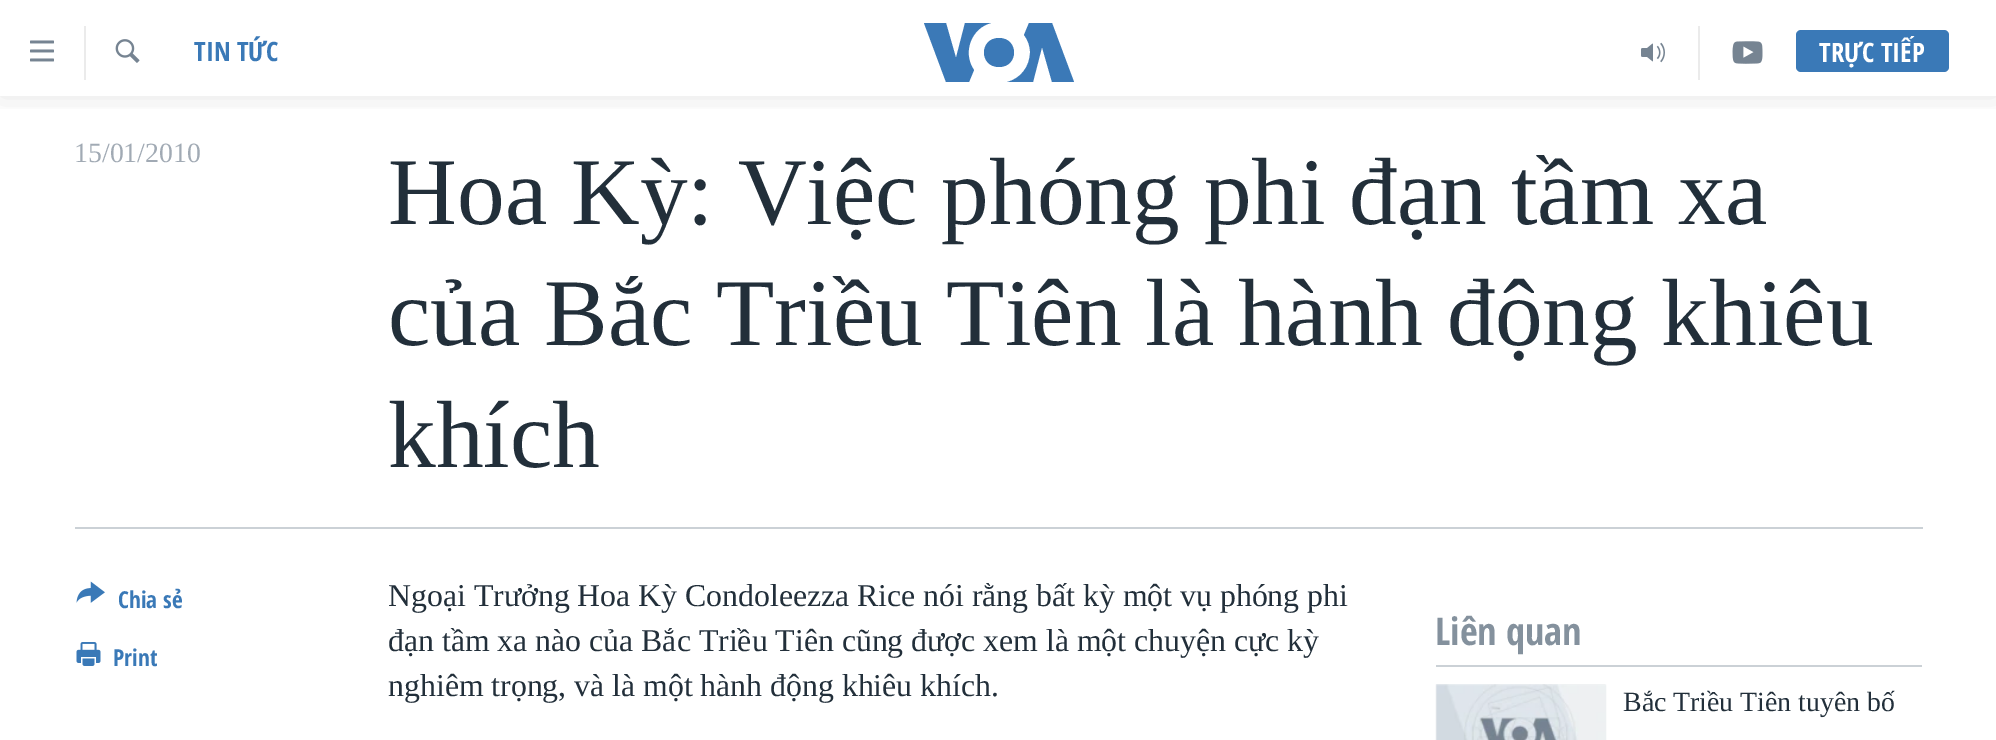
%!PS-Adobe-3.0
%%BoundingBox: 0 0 1996 740
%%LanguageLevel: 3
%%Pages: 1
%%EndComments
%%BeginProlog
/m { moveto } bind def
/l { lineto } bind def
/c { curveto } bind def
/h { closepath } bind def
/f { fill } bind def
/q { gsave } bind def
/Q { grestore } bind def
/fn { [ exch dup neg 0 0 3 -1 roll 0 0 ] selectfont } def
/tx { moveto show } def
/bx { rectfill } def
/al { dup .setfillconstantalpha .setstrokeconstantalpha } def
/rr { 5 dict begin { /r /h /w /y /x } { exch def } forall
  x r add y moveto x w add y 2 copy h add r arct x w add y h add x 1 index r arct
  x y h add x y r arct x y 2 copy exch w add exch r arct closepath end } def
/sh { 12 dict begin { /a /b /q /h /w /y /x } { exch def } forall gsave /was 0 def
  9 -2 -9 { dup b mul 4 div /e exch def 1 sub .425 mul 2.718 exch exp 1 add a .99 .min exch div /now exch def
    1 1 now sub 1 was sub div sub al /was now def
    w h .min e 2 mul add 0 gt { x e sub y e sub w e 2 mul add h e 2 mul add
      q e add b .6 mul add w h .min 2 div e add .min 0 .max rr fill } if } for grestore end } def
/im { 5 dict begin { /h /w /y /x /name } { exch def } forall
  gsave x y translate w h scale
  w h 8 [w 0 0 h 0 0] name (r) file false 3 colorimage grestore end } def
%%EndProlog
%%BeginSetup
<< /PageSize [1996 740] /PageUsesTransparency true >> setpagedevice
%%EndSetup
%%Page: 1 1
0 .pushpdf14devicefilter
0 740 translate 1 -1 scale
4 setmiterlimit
1 setgray
0 0 1996 740 bx
q
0 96 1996 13 rectclip
0 setgray
0 0 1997 96 0 15 0.1 sh
Q
(image0.raw) 30 40 24 22 im
0.922 setgray
84 26 2 54 bx
(image1.raw) 115 39 25 24 im
q
194 30 85 45 rectclip
/OpenSansCondensed-Bold 30 fn
0.227 0.475 0.718 setrgbcolor
(TIN TỨC) 194 61 tx
Q
0.231 0.475 0.718 setrgbcolor
974 70 m 969 82 l 946 82 l 924 23 l 946 23 l 956 58 l 965 23 l 991 23 l 971 28 962 53 974 70 c h 999 38 m 979 38 979 67 999 67 c 1019 67 1019 38 999 38 c h 1030 52 m 1030 67 1020 79 1007 82 c 1033 82 l 1042 47 l 1052 82 l 1074 82 l 1052 23 l 1029 23 l 1024 35 l 1028 40 1030 46 1030 52 c h f
0.922 setgray
1698 26 2 54 bx
(image2.raw) 1641 42 24 21 im
(image3.raw) 1732 41 31 23 im
0.227 0.475 0.718 setrgbcolor
1796 30 153 42 5 rr f
/OpenSansCondensed-Bold 30 fn
1 setgray
(TRỰC TIẾP) 1819 62 tx
/Tinos-Regular 26.25 fn
0.631 0.667 0.706 setrgbcolor
(15/01/2010) 74 162 tx
/Tinos-Regular 90 fn
0.133 0.184 0.227 setrgbcolor
(Hoa Kỳ: Việc phóng phi đạn tầm xa) 388 224 tx
(của Bắc Triều Tiên là hành động khiêu) 388 345 tx
(khích) 388 467 tx
0.796 0.82 0.839 setrgbcolor
75 527 1848 2 bx
(image4.raw) 76 581 29 22 im
/OpenSansCondensed-Bold 26.25 fn
0.227 0.475 0.718 setrgbcolor
(Chia sẻ) 118 608 tx
(image5.raw) 76 642 25 24 im
(Print) 113 666 tx
/Tinos-Regular 30 fn
0.133 0.184 0.227 setrgbcolor
(Ngoại Trưởng Hoa Kỳ Condoleezza Rice nói rằng bất kỳ một vụ phóng phi) 388 606 tx
(đạn tầm xa nào của Bắc Triều Tiên cũng được xem là một chuyện cực kỳ) 388 651 tx
(nghiêm trọng, và là một hành động khiêu khích.) 388 696 tx
0.796 0.82 0.839 setrgbcolor
1436 665 486 2 bx
/OpenSansCondensed-Bold 43 fn
0.518 0.569 0.616 setrgbcolor
(Liên quan) 1435 645 tx
0.965 0.969 0.973 setrgbcolor
1436 684 169 56 bx
(image6.raw) 1435 684 172 56 im
/Tinos-Regular 26.25 fn
0.133 0.184 0.227 setrgbcolor
(Bắc Triều Tiên tuyên bố) 1623 711 tx
.poppdf14devicefilter showpage
%%EOF
